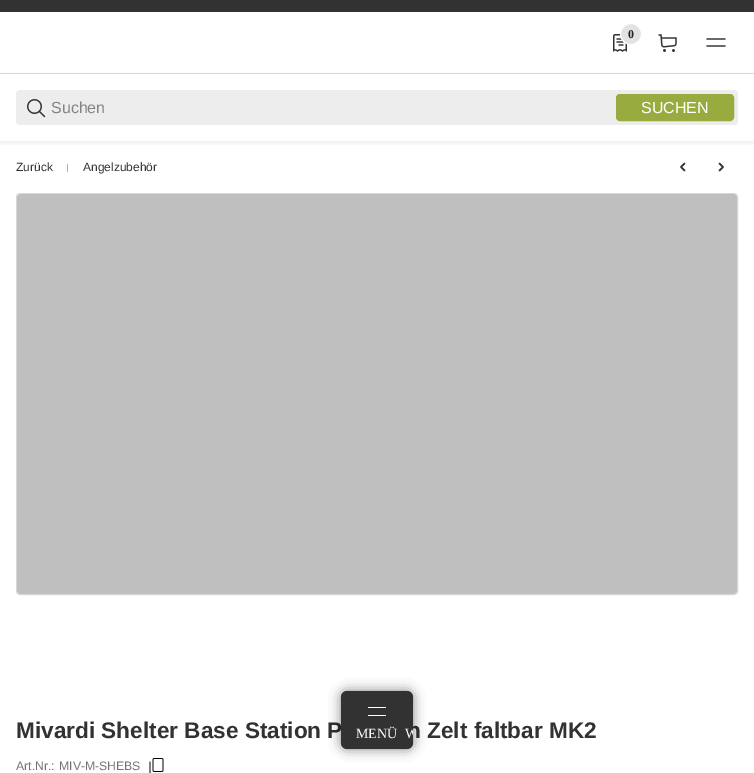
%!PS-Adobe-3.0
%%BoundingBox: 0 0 754 773
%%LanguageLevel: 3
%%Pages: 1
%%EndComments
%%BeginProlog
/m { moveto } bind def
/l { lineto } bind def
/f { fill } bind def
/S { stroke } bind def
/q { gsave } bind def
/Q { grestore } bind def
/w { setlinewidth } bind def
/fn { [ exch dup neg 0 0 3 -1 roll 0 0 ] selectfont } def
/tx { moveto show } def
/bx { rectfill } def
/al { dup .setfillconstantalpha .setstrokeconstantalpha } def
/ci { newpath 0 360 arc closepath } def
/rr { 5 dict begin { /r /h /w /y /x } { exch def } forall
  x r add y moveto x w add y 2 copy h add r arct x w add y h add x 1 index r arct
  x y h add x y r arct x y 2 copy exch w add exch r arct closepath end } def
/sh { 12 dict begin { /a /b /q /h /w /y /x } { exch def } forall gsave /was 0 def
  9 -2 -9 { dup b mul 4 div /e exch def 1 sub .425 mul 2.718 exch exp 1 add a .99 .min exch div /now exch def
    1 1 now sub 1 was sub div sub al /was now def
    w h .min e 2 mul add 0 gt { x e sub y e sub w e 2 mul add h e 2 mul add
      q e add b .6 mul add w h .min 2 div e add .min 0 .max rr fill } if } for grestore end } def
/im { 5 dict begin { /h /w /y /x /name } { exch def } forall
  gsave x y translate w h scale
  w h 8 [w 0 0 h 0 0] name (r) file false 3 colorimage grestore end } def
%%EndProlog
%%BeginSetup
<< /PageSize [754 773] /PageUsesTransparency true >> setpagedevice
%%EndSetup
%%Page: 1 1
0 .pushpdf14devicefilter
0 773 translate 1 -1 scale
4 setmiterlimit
1 setgray
0 0 754 773 bx
0.196 setgray
0 0 754 12 bx
(image0.raw) 613 34 14 18 im
0.886 setgray
631 34 10.5 ci q f Q
1 setgray
S
/LiberationSerif-Bold 12 fn
0.133 setgray
(0) 628 38 tx
(image1.raw) 658 34 19 18 im
(image2.raw) 706 38 20 9 im
0.843 setgray
0 73 754 1 bx
0.929 setgray
16 90 722 35 4 rr f
(image3.raw) 27 99 19 19 im
/LiberationSans-Regular 16 fn
0.518 setgray
(Suchen) 51 113 tx
0.596 0.671 0.247 setrgbcolor
616.5 94.5 117 26 3.5 rr q f Q
S
1 setgray
(SUCHEN) 641 113 tx
q
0 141 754 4 rectclip
0 setgray
0 133 754 10 0 3 0.07 sh
Q
/LiberationSans-Regular 12 fn
0.196 setgray
(Zurück) 16 171 tx
0.694 setgray
67 164 1 8 bx
0.196 setgray
(Angelzubehör) 83 171 tx
1.5 w
1 setlinecap
1 setlinejoin
684.5 170.5 m 681 167 l 684.5 163.5 l 719.5 170.5 m 723 167 l 719.5 163.5 l S
0.843 setgray
1 w
0 setlinecap
0 setlinejoin
16.5 193.5 721 401 3.5 rr S
0.749 setgray
17 194 720 400 4 rr f
/LiberationSans-Bold 22.6 fn
0.196 setgray
(Mivardi Shelter Base Station P) 16 738 tx
(n Zelt faltbar MK2) 407 738 tx
/LiberationSans-Regular 12.25 fn
0.447 setgray
(Art.Nr.:) 16 770 tx
(MIV-M-SHEBS) 59 770 tx
(image4.raw) 149 758 15 15 im
0 setgray
341 691 72 58 6 6 0.5 sh
0.196 setgray
341 691 72 58 6 rr f
1 setgray
368 707 18 1 bx
368 715 18 1 bx
/LiberationSerif-Regular 14 fn
(MENÜ) 356 738 tx
q
341 691 72 58 6 rr clip newpath
(W) 405 738 tx
Q
.poppdf14devicefilter showpage
%%EOF
